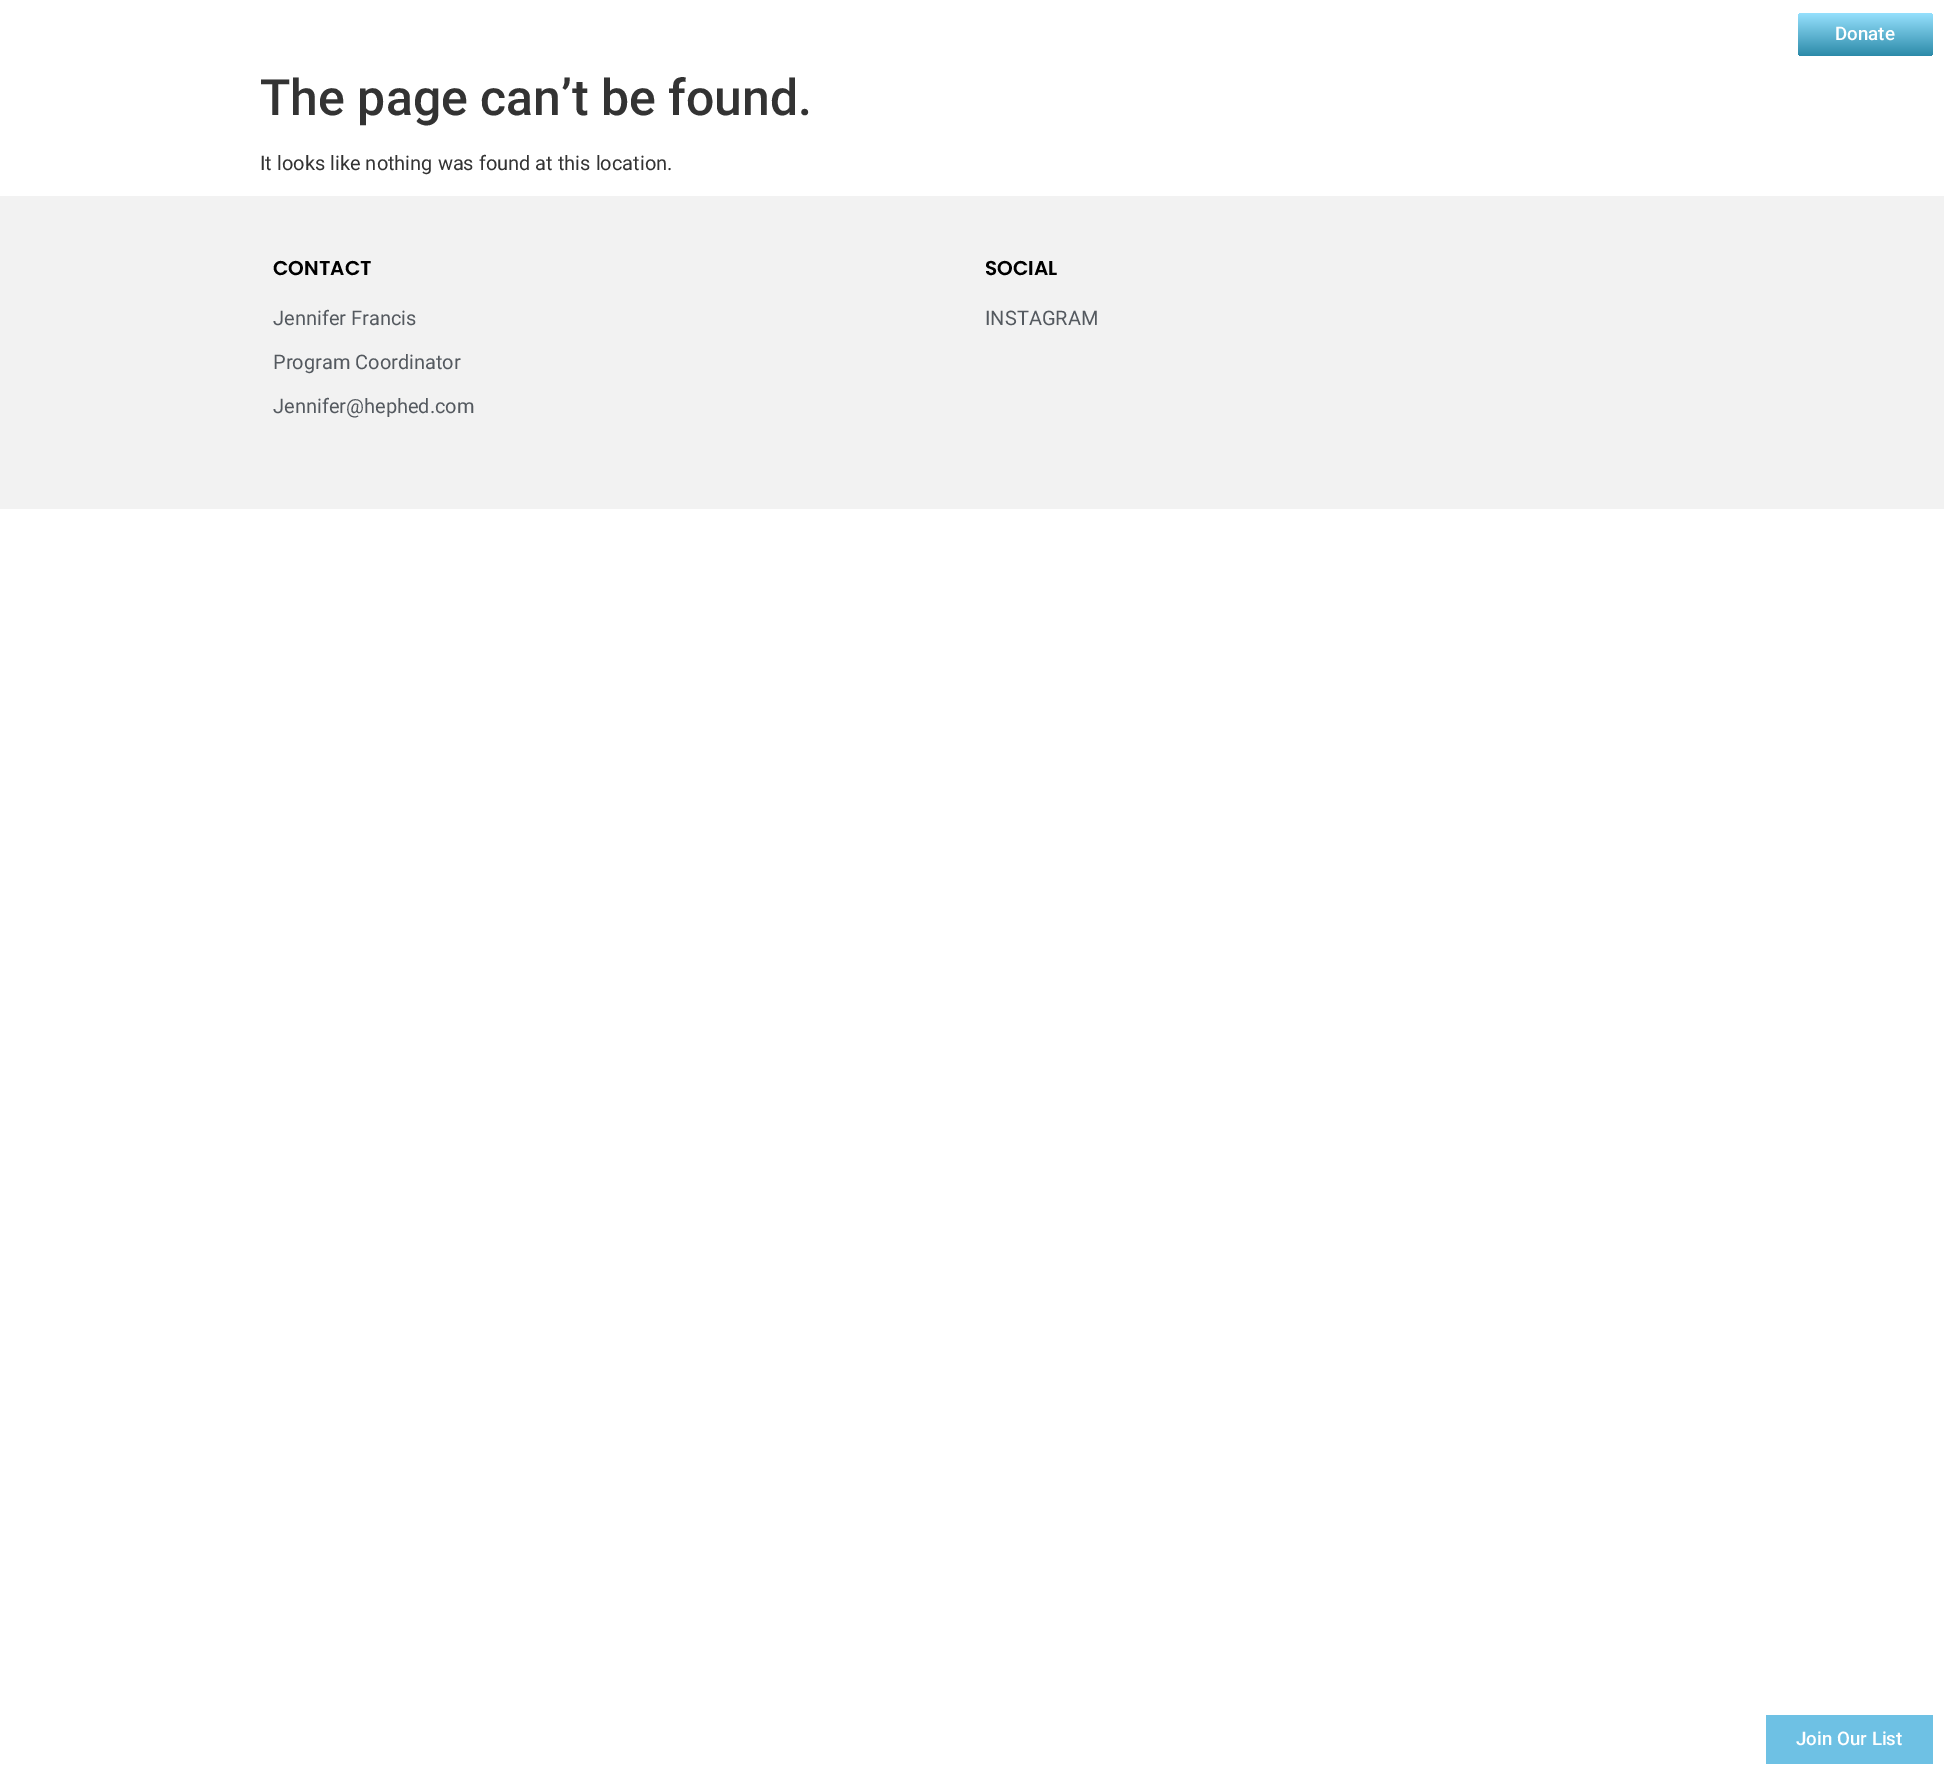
%!PS-Adobe-3.0
%%BoundingBox: 0 0 1944 1776
%%LanguageLevel: 3
%%Pages: 1
%%EndComments
%%BeginProlog
/q { gsave } bind def
/Q { grestore } bind def
/fn { [ exch dup neg 0 0 3 -1 roll 0 0 ] selectfont } def
/tx { moveto show } def
/bx { rectfill } def
/rr { 5 dict begin { /r /h /w /y /x } { exch def } forall
  x r add y moveto x w add y 2 copy h add r arct x w add y h add x 1 index r arct
  x y h add x y r arct x y 2 copy exch w add exch r arct closepath end } def
%%EndProlog
%%BeginSetup
<< /PageSize [1944 1776] >> setpagedevice
%%EndSetup
%%Page: 1 1
0 1776 translate 1 -1 scale
4 setmiterlimit
1 setgray
0 0 1944 1776 bx
q 1798 13 135 43 4 rr clip newpath
<< /ShadingType 2 /ColorSpace /DeviceRGB /Coords [1865 12 1865 56] /Extend [true true] /Function << /FunctionType 2 /Domain [0 1] /C0 [0.596 0.89 1] /C1 [0.173 0.541 0.663] /N 1 >> >> shfill Q
/Roboto-Medium 18.75 fn
(Donate) 1835 40 tx
/Roboto-Medium 50 fn
0.2 setgray
(The page can’t be found.) 260 115 tx
/Roboto-Regular 20 fn
(It looks like nothing was found at this location.) 260 170 tx
0.949 setgray
0 196 1944 313 bx
/Poppins-SemiBold 20 fn
0 setgray
(CONTACT) 273 275 tx
/Roboto-Regular 20 fn
0.329 0.349 0.373 setrgbcolor
(Jennifer Francis) 273 325 tx
(Program Coordinator) 273 369 tx
(Jennifer@hephed.com) 273 413 tx
0.431 0.757 0.894 setrgbcolor
1766 1715 167 49 bx
/Roboto-Medium 18.75 fn
1 setgray
(Join Our List) 1796 1745 tx
/Poppins-SemiBold 20 fn
0 setgray
(SOCIAL) 985 275 tx
/Roboto-Regular 20 fn
0.329 0.349 0.373 setrgbcolor
(INSTAGRAM) 985 325 tx
showpage
%%EOF
